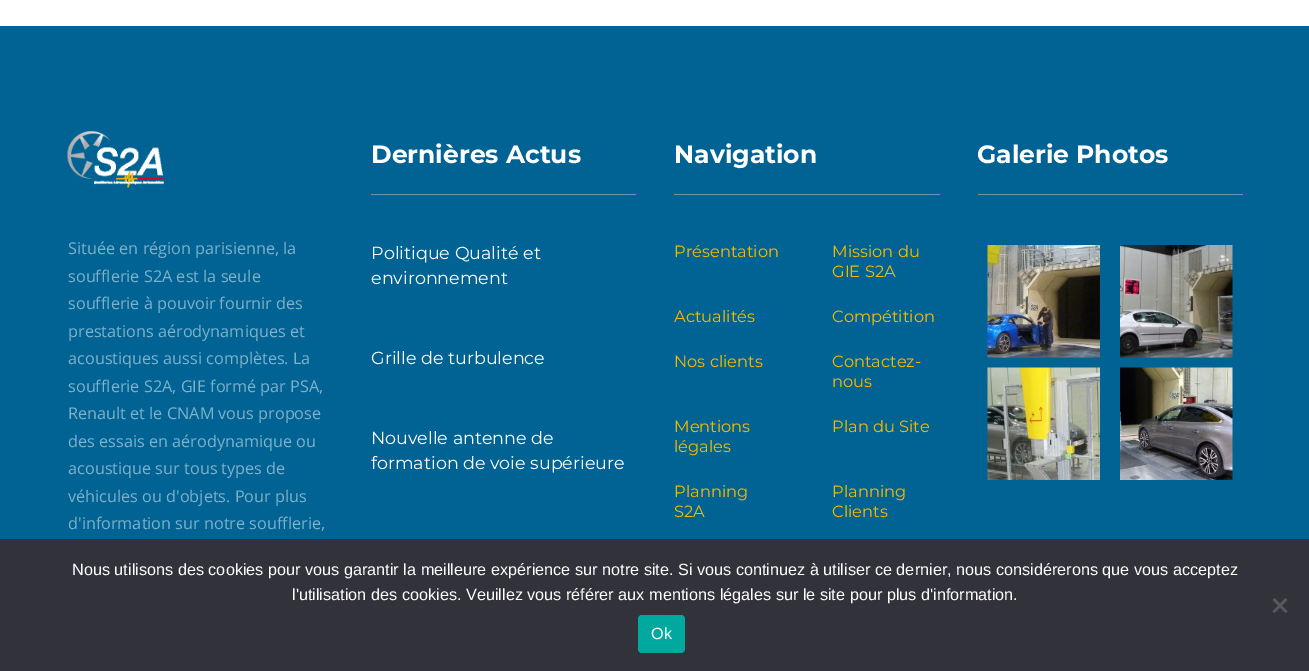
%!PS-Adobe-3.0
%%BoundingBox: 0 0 1309 671
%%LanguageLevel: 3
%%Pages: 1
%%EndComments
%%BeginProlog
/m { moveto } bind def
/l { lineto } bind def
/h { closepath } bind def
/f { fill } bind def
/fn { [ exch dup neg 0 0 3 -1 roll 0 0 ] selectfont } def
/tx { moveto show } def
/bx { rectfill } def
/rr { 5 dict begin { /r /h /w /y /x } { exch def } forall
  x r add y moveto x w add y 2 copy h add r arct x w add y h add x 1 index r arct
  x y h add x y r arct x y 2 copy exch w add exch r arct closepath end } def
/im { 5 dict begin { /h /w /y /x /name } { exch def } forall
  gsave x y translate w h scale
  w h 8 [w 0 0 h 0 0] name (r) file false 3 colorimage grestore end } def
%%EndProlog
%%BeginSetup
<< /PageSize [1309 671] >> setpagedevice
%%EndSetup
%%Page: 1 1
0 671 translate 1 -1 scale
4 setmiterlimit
1 setgray
0 0 1309 671 bx
0 0.388 0.58 setrgbcolor
0 26 1309 513 bx
0.4 0.596 0.69 setrgbcolor
371 194 265 1 bx
/Montserrat-Bold 25 fn
1 setgray
(Dernières Actus) 371 163 tx
/Montserrat-Regular 17.5 fn
(Politique Qualité et) 371 259 tx
(environnement) 371 284 tx
(Grille de turbulence) 371 364 tx
(Nouvelle antenne de) 371 444 tx
(formation de voie supérieure) 371 469 tx
0.4 0.596 0.69 setrgbcolor
674 194 266 1 bx
/Montserrat-Bold 25 fn
1 setgray
(Navigation) 674 163 tx
/Montserrat-Regular 16.25 fn
0.969 0.725 0 setrgbcolor
(Présentation) 674 257 tx
(Mission du) 832 257 tx
(GIE S2A) 832 277 tx
(Actualités) 674 322 tx
(Compétition) 832 322 tx
(Nos clients) 674 367 tx
(Contactez-) 832 367 tx
(nous) 832 387 tx
(Mentions) 674 432 tx
(légales) 674 452 tx
(Plan du Site) 832 432 tx
(Planning) 674 497 tx
(S2A) 674 517 tx
(Planning) 832 497 tx
(Clients) 832 517 tx
0.4 0.596 0.69 setrgbcolor
978 194 265 1 bx
/Montserrat-Bold 25 fn
1 setgray
(Galerie Photos) 977 163 tx
(image0.raw) 987 245 113 113 im
(image1.raw) 1120 245 113 113 im
(image2.raw) 987 367 113 113 im
(image3.raw) 1120 367 113 113 im
(image4.raw) 67 131 97 57 im
/OpenSans-Regular 16.25 fn
0.502 0.694 0.792 setrgbcolor
(Située en région parisienne, la) 68 254 tx
(soufflerie S2A est la seule) 68 282 tx
(soufflerie à pouvoir fournir des) 68 309 tx
(prestations aérodynamiques et) 68 337 tx
(acoustiques aussi complètes. La) 68 364 tx
(soufflerie S2A, GIE formé par PSA,) 68 392 tx
(Renault et le CNAM vous propose) 68 419 tx
(des essais en aérodynamique ou) 68 447 tx
(acoustique sur tous types de) 68 474 tx
(véhicules ou d'objets. Pour plus) 68 502 tx
(d'information sur notre soufflerie,) 68 529 tx
0.196 0.196 0.227 setrgbcolor
0 539 1309 132 bx
/LiberationSans-Regular 16.25 fn
1 setgray
(Nous utilisons des cookies pour vous garantir la meilleure expérience sur notre site. Si vous continuez à utiliser ce dernier, nous considérerons que vous acceptez) 72 575 tx
(l'utilisation des cookies. Veuillez vous référer aux mentions légales sur le site pour plus d'information.) 292 600 tx
0.349 0.349 0.365 setrgbcolor
1285.5 598 m 1287.5 600 l 1274.5 613 l 1272.5 611.5 l h f
1272.5 600 m 1274.5 598 l 1287.5 611.5 l 1285.5 613 l h f
0 0.663 0.616 setrgbcolor
638 615 47 38 4 rr f
1 setgray
(Ok) 651 639 tx
showpage
%%EOF
